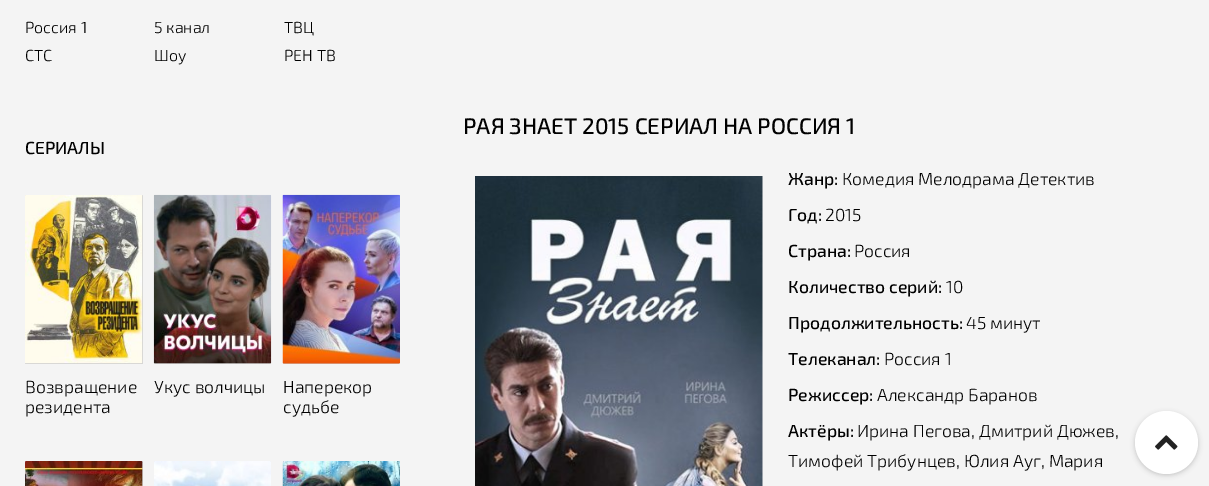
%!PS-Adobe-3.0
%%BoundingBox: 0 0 1209 486
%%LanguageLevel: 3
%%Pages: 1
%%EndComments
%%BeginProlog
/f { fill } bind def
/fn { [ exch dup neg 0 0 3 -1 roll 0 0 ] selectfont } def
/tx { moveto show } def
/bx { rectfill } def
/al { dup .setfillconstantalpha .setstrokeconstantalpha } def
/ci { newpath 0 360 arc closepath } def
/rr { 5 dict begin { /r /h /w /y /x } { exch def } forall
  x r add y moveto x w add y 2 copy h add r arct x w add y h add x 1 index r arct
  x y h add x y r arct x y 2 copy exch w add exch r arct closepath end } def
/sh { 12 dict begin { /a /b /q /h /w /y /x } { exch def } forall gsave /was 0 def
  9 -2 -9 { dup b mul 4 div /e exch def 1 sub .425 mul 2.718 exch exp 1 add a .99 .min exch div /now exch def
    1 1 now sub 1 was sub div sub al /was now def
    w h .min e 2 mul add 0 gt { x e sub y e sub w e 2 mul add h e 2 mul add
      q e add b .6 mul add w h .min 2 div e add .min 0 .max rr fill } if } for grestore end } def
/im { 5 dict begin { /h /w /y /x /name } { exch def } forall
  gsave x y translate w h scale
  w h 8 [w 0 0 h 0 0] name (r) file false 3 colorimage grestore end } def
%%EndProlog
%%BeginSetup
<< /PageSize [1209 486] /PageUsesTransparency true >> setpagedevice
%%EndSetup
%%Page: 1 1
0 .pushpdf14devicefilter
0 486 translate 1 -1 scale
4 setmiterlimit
0.957 setgray
0 0 1209 486 bx
/Exo2-Light 16 fn
0 setgray
(Россия 1) 25 33 tx
(СТС) 25 61 tx
(5 канал) 154 33 tx
(Шоу) 154 61 tx
(ТВЦ) 284 33 tx
(РЕН ТВ) 284 61 tx
/Exo2-Medium 17.5 fn
(СЕРИАЛЫ) 25 154 tx
0.8 setgray
25 195 118 169 1 rr f
(image0.raw) 25 195 118 169 im
/Exo2-Light 17.5 fn
0 setgray
(Возвращение) 25 393 tx
(резидента) 25 413 tx
0.8 setgray
154 195 117 169 1 rr f
(image1.raw) 153 194 119 170 im
0 setgray
(Укус волчицы) 154 393 tx
0.8 setgray
283 195 117 169 1 rr f
(image2.raw) 282 194 118 170 im
0 setgray
(Наперекор) 283 393 tx
(судьбе) 283 413 tx
0.8 setgray
25 461 118 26 1 rr f
(image3.raw) 25 461 118 25 im
(image4.raw) 154 461 117 25 im
(image5.raw) 282 461 118 25 im
/Exo2-Medium 22.5 fn
0 setgray
(РАЯ ЗНАЕТ 2015 СЕРИАЛ НА РОССИЯ 1) 463 134 tx
(image6.raw) 475 176 288 310 im
/Exo2-Medium 17.5 fn
(Жанр:) 788 185 tx
/Exo2-Light 17.5 fn
(Комедия Мелодрама Детектив) 842 185 tx
/Exo2-Medium 17.5 fn
(Год:) 788 221 tx
/Exo2-Light 17.5 fn
(2015) 825 221 tx
/Exo2-Medium 17.5 fn
(Страна:) 788 257 tx
/Exo2-Light 17.5 fn
(Россия) 854 257 tx
/Exo2-Medium 17.5 fn
(Количество серий:) 788 293 tx
/Exo2-Light 17.5 fn
(10) 946 293 tx
/Exo2-Medium 17.5 fn
(Продолжительность:) 788 329 tx
/Exo2-Light 17.5 fn
(45 минут) 966 329 tx
/Exo2-Medium 17.5 fn
(Телеканал:) 788 365 tx
/Exo2-Light 17.5 fn
(Россия 1) 884 365 tx
/Exo2-Medium 17.5 fn
(Режиссер:) 788 401 tx
/Exo2-Light 17.5 fn
(Александр Баранов) 877 401 tx
/Exo2-Medium 17.5 fn
(Актёры:) 788 437 tx
/Exo2-Light 17.5 fn
(Ирина Пегова, Дмитрий Дюжев,) 857 437 tx
(Тимофей Трибунцев, Юлия Ауг, Мария) 788 467 tx
1135 413 63 62 31 2.5 0.2 sh
1 setgray
1166.5 442.5 31.5 ci f
(image7.raw) 1155 435 23 15 im
.poppdf14devicefilter showpage
%%EOF
